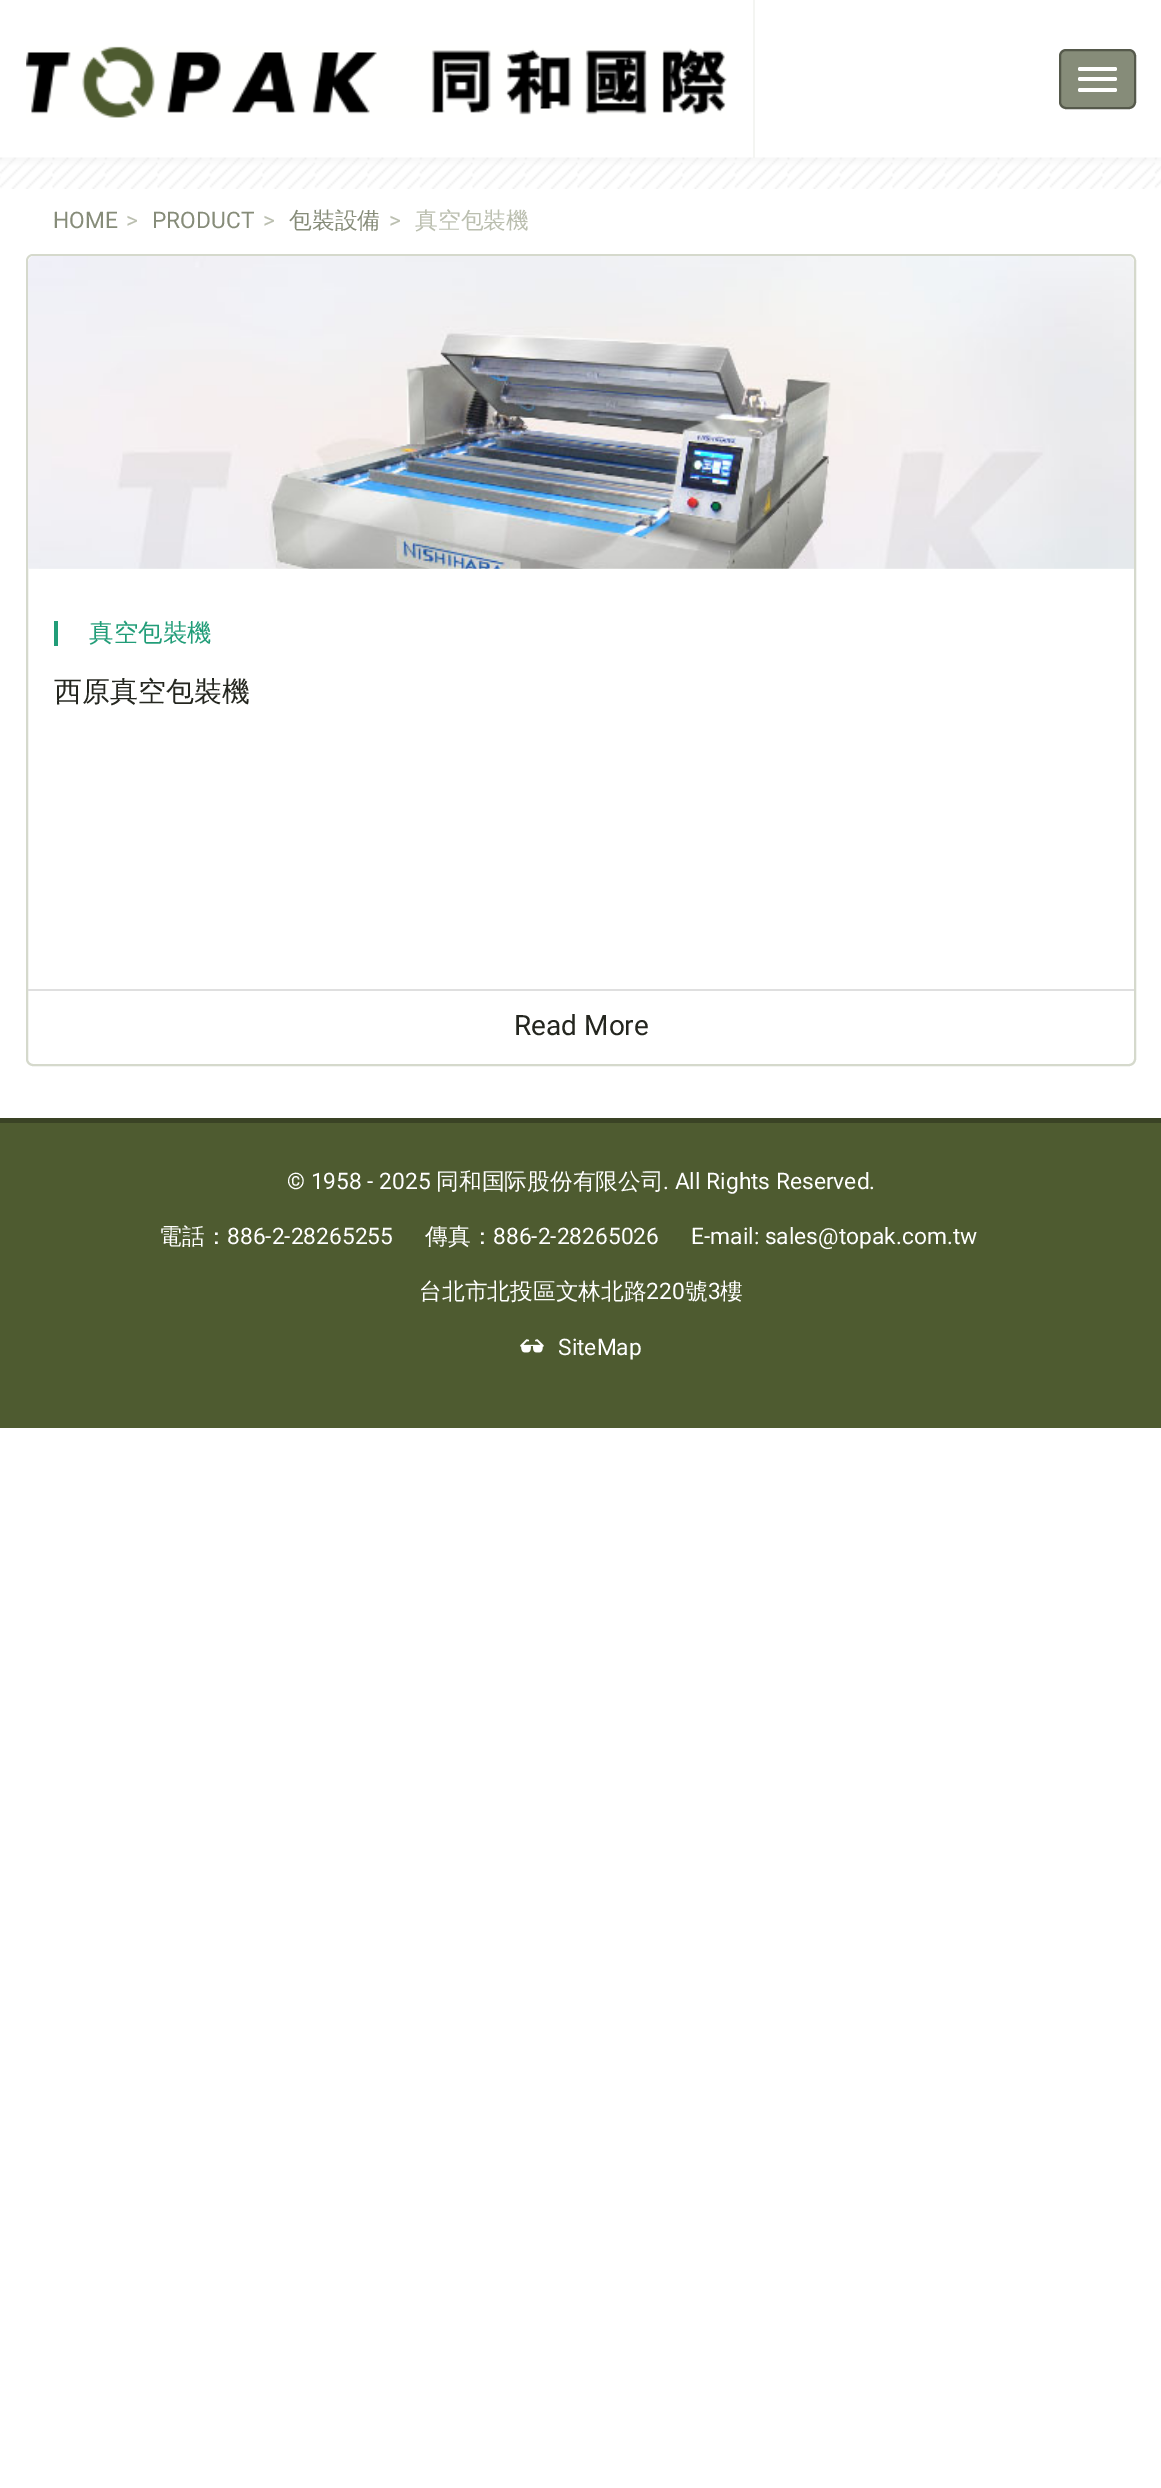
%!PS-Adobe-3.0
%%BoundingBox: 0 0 1161 2488
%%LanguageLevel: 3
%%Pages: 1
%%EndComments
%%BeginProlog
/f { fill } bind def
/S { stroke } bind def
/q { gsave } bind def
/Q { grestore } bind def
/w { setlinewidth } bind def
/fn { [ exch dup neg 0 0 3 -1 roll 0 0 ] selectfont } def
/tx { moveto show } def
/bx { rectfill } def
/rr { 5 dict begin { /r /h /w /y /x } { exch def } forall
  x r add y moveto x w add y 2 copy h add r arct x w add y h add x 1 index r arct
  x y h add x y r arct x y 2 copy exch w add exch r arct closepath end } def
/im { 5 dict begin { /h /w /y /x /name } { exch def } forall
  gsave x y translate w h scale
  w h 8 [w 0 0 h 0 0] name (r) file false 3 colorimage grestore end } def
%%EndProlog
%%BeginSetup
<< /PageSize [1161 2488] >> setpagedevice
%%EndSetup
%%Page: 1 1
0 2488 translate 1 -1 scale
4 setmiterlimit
1 setgray
0 0 1161 2488 bx
(image0.raw) 0 157 1161 32 im
0.957 0.961 0.949 setrgbcolor
753 0 2 158 bx
(image1.raw) 26 46 701 72 im
0.525 0.549 0.475 setrgbcolor
1060 50 75 58 6 rr q f Q
0.333 0.349 0.294 setrgbcolor
2 w
S
1 setgray
1078 67 39 4 2 rr f
1078 77 39 4 2 rr f
1078 88 39 4 2 rr f
/Roboto-Regular 22.75 fn
0.525 0.549 0.475 setrgbcolor
(HOME) 53 228 tx
0.733 0.749 0.69 setrgbcolor
(>) 126 228 tx
0.525 0.549 0.475 setrgbcolor
(PRODUCT) 152 228 tx
0.733 0.749 0.69 setrgbcolor
(>) 263 228 tx
/WenQuanYiZenHei-Medium 22.75 fn
0.525 0.549 0.475 setrgbcolor
(包裝設備) 289 228 tx
/Roboto-Regular 22.75 fn
0.733 0.749 0.69 setrgbcolor
(>) 389 228 tx
/WenQuanYiZenHei-Medium 22.75 fn
(真空包裝機) 415 228 tx
0.835 0.851 0.8 setrgbcolor
27 255 1108 810 6 rr S
(image2.raw) 28 256 1106 313 im
0.129 0.616 0.471 setrgbcolor
54 621 4 25 bx
/WenQuanYiZenHei-Medium 24.5 fn
(真空包裝機) 89 641 tx
/WenQuanYiZenHei-Medium 28 fn
0.141 0.149 0.122 setrgbcolor
(西原真空包裝機) 54 701 tx
0.875 setgray
28 989 1106 2 bx
/Roboto-Regular 28 fn
0.141 0.149 0.122 setrgbcolor
(Read More) 514 1035 tx
0.306 0.357 0.188 setrgbcolor
0 1123 1161 305 bx
0.227 0.263 0.145 setrgbcolor
0 1118 1161 5 bx
/Roboto-Regular 22.75 fn
1 setgray
(© 1958 - 2025) 287 1189 tx
/WenQuanYiZenHei-Medium 22.75 fn
(同和国际股份有限公司) 436 1189 tx
/Roboto-Regular 22.75 fn
(. All Rights Reserved.) 663 1189 tx
/WenQuanYiZenHei-Medium 22.75 fn
(電話：) 159 1244 tx
/Roboto-Regular 22.75 fn
(886-2-28265255) 227 1244 tx
/WenQuanYiZenHei-Medium 22.75 fn
(傳真：) 425 1244 tx
/Roboto-Regular 22.75 fn
(886-2-28265026) 493 1244 tx
(E-mail: sales@topak.com.tw) 691 1244 tx
/WenQuanYiZenHei-Medium 22.75 fn
(台北市北投區文林北路) 419 1299 tx
/Roboto-Regular 22.75 fn
(220) 646 1299 tx
/WenQuanYiZenHei-Medium 22.75 fn
(號) 685 1299 tx
/Roboto-Regular 22.75 fn
(3) 708 1299 tx
/WenQuanYiZenHei-Medium 22.75 fn
(樓) 720 1299 tx
(image3.raw) 520 1339 24 14 im
/Roboto-Regular 22.75 fn
(SiteMap) 558 1355 tx
showpage
%%EOF
